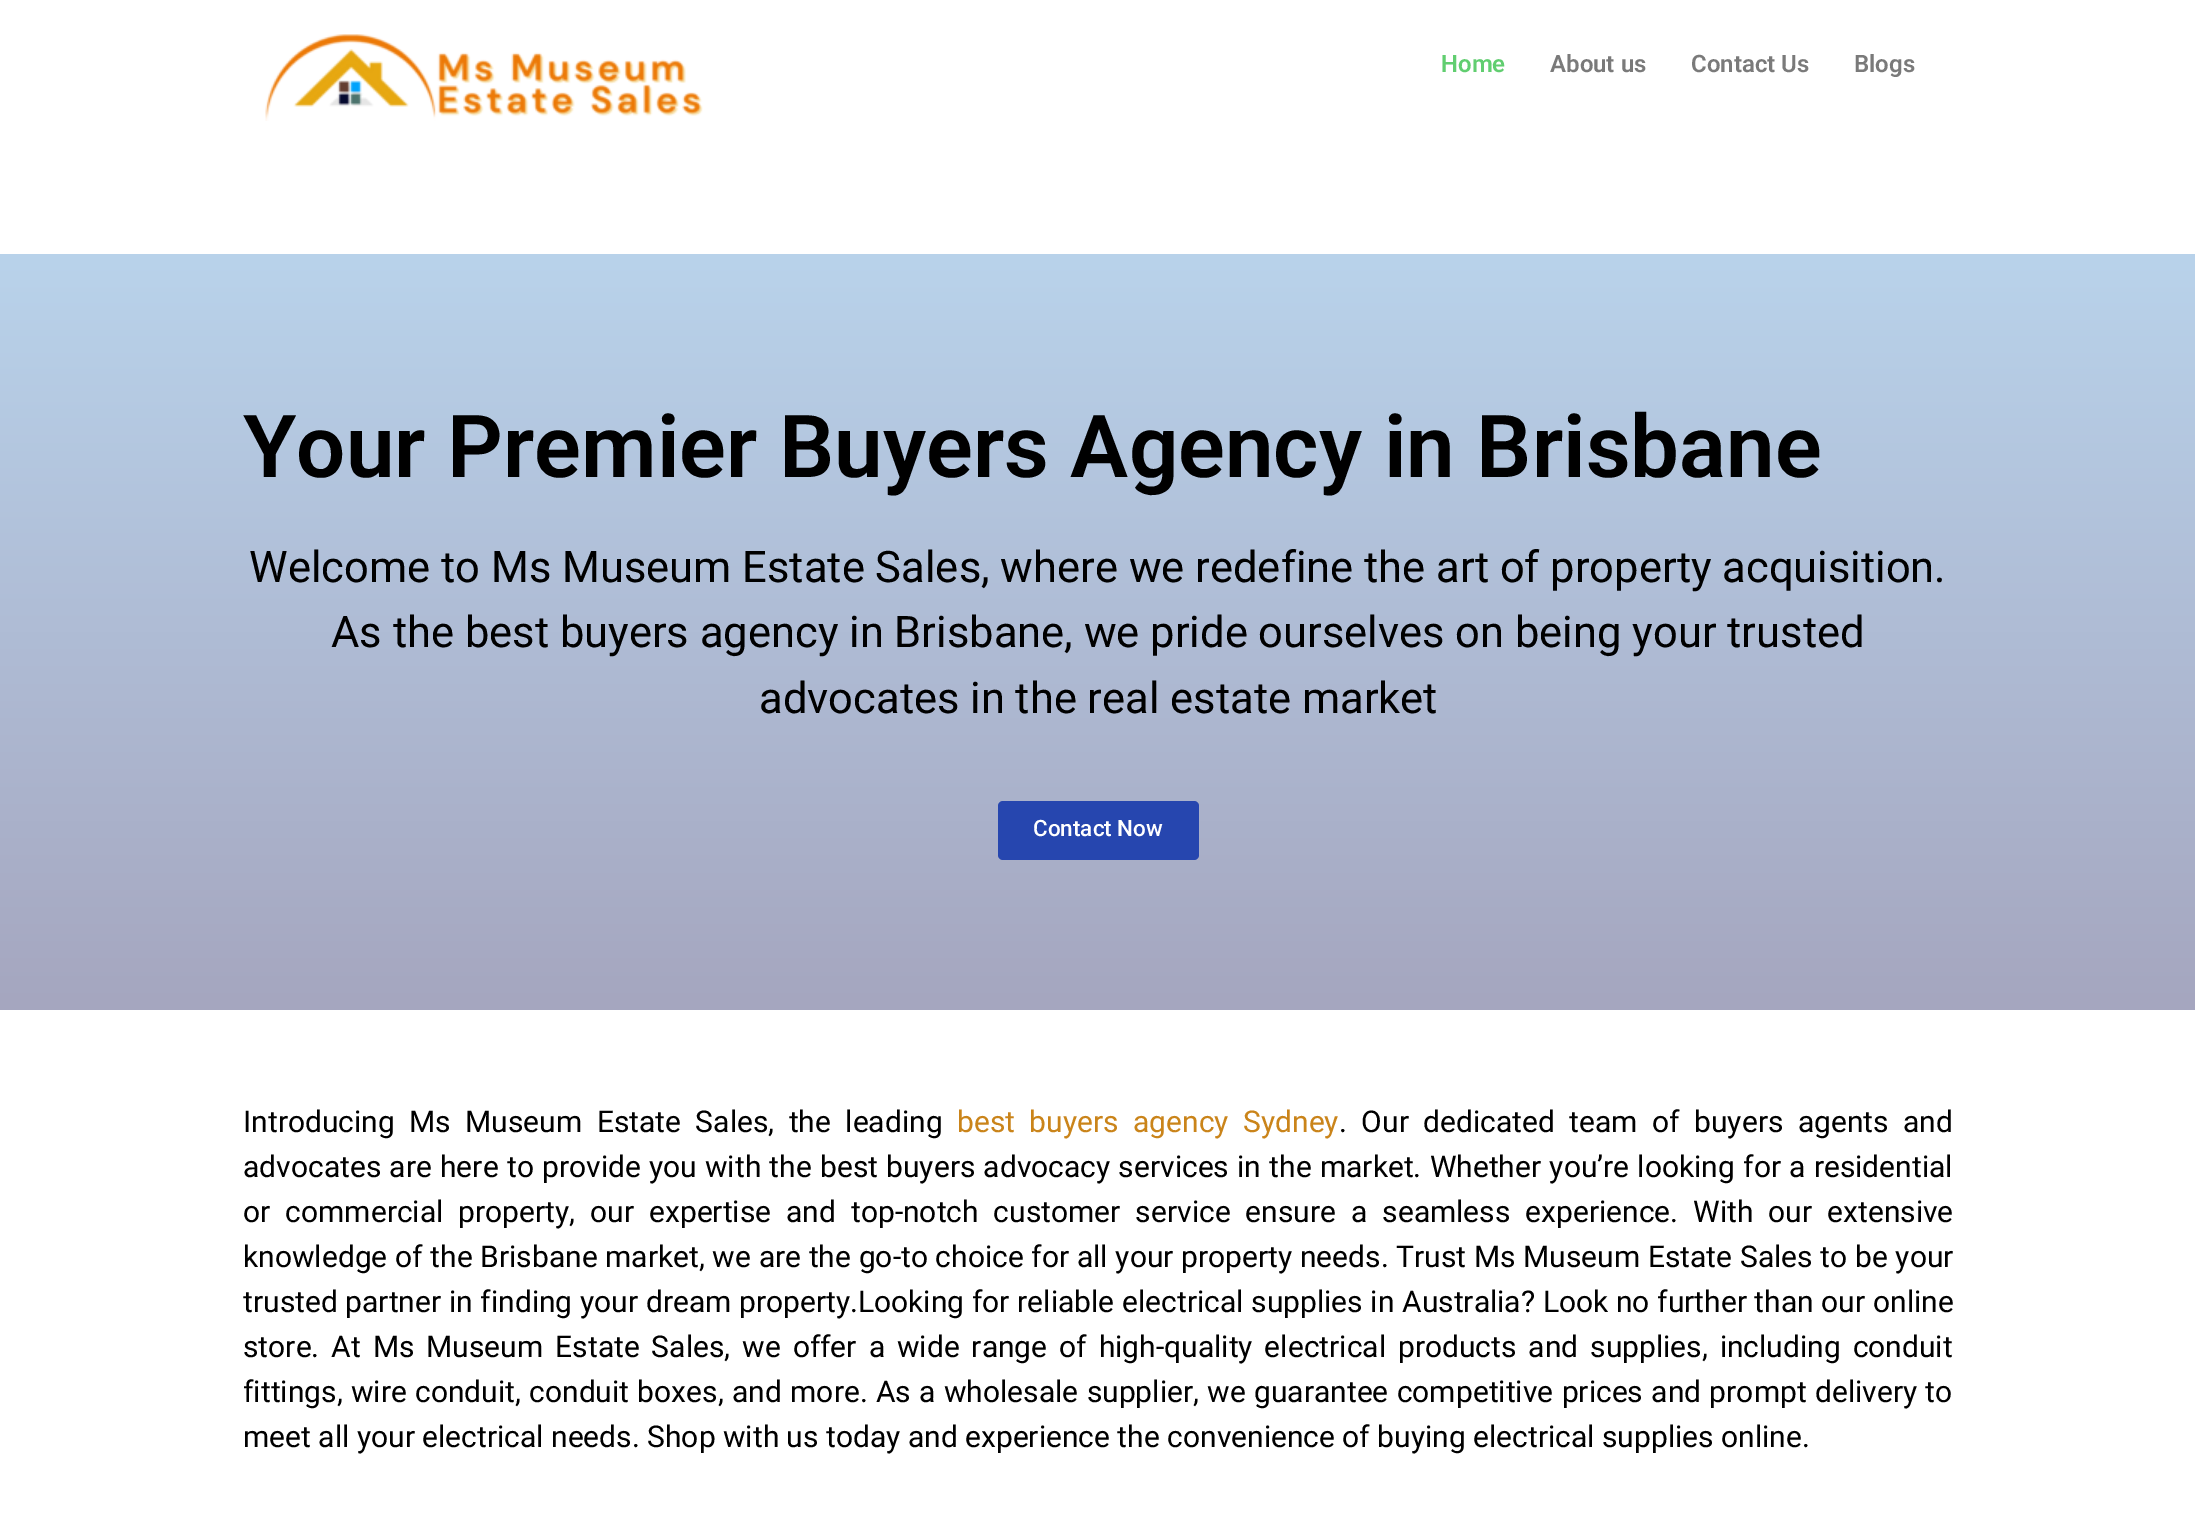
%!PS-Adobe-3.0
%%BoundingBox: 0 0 2195 1538
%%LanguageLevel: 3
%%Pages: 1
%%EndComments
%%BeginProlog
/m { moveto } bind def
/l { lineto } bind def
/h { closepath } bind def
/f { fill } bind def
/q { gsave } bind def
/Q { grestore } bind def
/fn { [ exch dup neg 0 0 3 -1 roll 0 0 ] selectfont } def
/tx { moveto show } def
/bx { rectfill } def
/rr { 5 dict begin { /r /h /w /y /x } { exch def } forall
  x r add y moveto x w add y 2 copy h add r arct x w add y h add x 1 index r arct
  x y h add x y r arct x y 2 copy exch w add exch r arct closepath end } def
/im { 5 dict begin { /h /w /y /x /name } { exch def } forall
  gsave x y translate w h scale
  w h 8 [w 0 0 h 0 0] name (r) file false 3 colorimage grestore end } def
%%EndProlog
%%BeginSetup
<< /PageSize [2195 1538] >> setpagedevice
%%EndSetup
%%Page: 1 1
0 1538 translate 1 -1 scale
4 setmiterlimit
1 setgray
0 0 2195 1538 bx
(image0.raw) 265 34 438 87 im
/Roboto-SemiBold 24 fn
0.38 0.808 0.439 setrgbcolor
(Home) 1441 72 tx
0.478 setgray
(About us) 1550 72 tx
(Contact Us) 1691 72 tx
(Blogs) 1854 72 tx
q 0 254 m 2195 254 l 2195 1010 l 0 1010 l h clip newpath
<< /ShadingType 2 /ColorSpace /DeviceRGB /Coords [1098 253 1098 1010] /Extend [true true] /Function << /FunctionType 2 /Domain [0 1] /C0 [0.725 0.827 0.922] /C1 [0.647 0.651 0.749] /N 1 >> >> shfill Q
/Roboto-SemiBold 87 fn
0 setgray
(Your Premier Buyers Agency in Brisbane) 243 477 tx
/Roboto-Regular 43.5 fn
(Welcome to Ms Museum Estate Sales, where we redefine the art of property acquisition.) 249 582 tx
(As the best buyers agency in Brisbane, we pride ourselves on being your trusted) 331 647 tx
(advocates in the real estate market) 759 713 tx
0.149 0.275 0.686 setrgbcolor
998 801 201 59 5 rr f
/Roboto-Medium 22.5 fn
1 setgray
(Contact Now) 1033 836 tx
/Roboto-Regular 30 fn
0 setgray
243 1132 m 7 0 32 (Introducing Ms Museum Estate Sales, the leading) widthshow
0.792 0.518 0.102 setrgbcolor
957 1132 m 7 0 32 (best buyers agency Sydney) widthshow
0 setgray
1339 1132 m 7 0 32 (. Our dedicated team of buyers agents and) widthshow
243 1177 m 0.8 0 32 (advocates are here to provide you with the best buyers advocacy services in the market. Whether you’re looking for a residential) widthshow
243 1222 m 7.5 0 32 (or commercial property, our expertise and top-notch customer service ensure a seamless experience. With our extensive) widthshow
243 1267 m 0.25 0 32 (knowledge of the Brisbane market, we are the go-to choice for all your property needs. Trust Ms Museum Estate Sales to be your) widthshow
243 1312 m 0.25 0 32 (trusted partner in finding your dream property.Looking for reliable electrical supplies in Australia? Look no further than our online) widthshow
243 1357 m 4.5 0 32 (store. At Ms Museum Estate Sales, we offer a wide range of high-quality electrical products and supplies, including conduit) widthshow
243 1402 m 0.9 0 32 (fittings, wire conduit, conduit boxes, and more. As a wholesale supplier, we guarantee competitive prices and prompt delivery to) widthshow
(meet all your electrical needs. Shop with us today and experience the convenience of buying electrical supplies online.) 243 1447 tx
showpage
%%EOF
